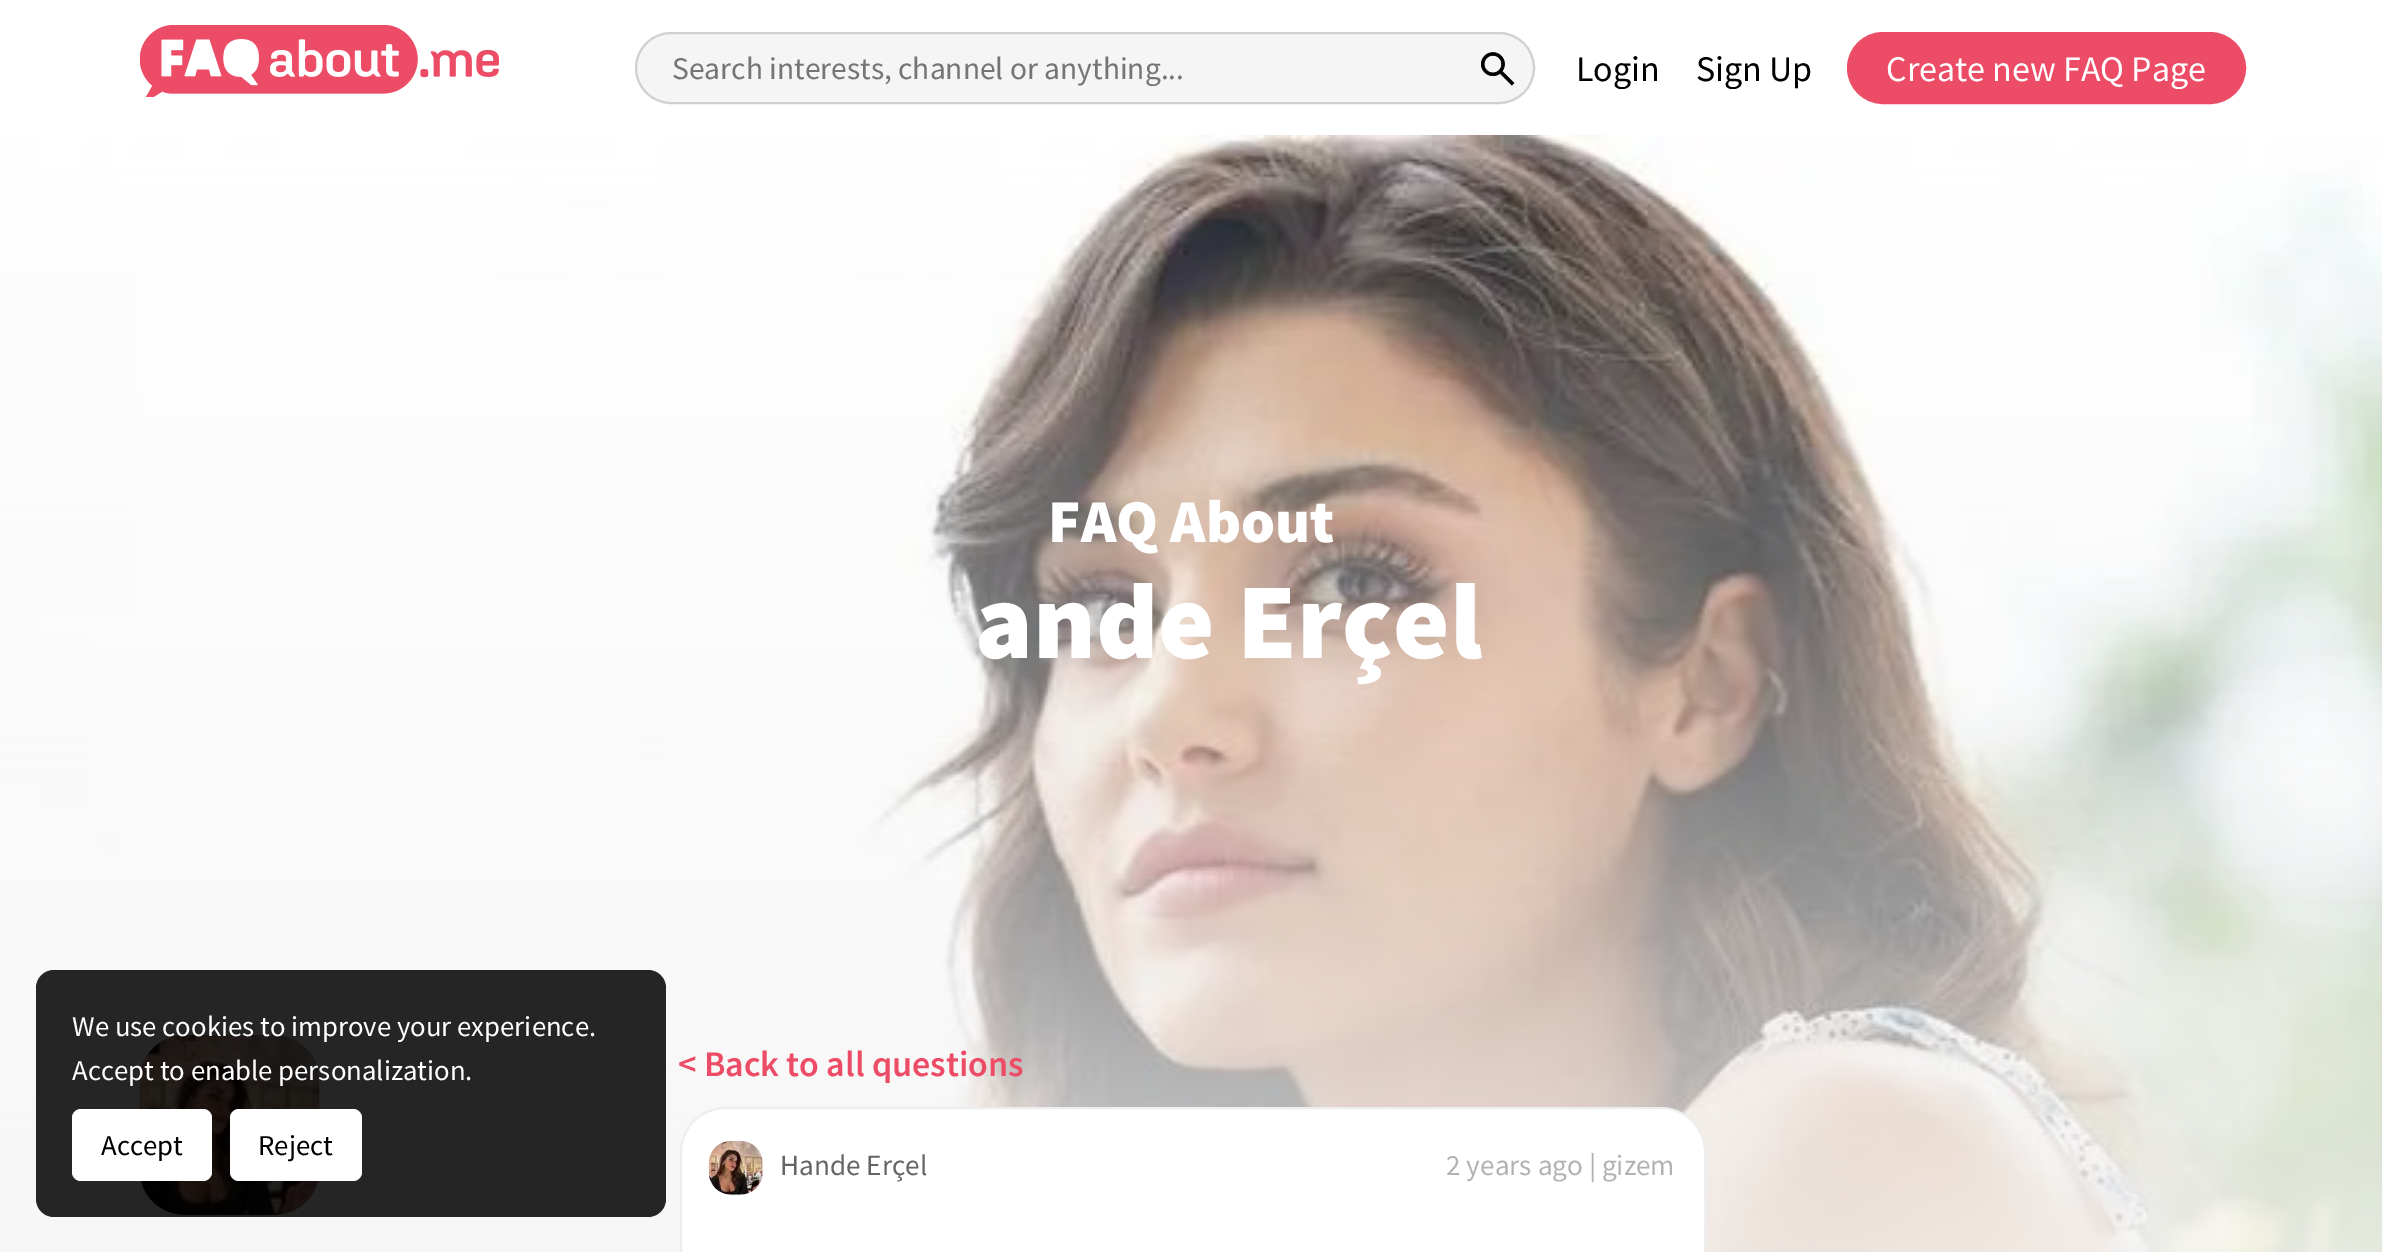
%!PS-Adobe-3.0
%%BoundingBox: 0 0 2382 1252
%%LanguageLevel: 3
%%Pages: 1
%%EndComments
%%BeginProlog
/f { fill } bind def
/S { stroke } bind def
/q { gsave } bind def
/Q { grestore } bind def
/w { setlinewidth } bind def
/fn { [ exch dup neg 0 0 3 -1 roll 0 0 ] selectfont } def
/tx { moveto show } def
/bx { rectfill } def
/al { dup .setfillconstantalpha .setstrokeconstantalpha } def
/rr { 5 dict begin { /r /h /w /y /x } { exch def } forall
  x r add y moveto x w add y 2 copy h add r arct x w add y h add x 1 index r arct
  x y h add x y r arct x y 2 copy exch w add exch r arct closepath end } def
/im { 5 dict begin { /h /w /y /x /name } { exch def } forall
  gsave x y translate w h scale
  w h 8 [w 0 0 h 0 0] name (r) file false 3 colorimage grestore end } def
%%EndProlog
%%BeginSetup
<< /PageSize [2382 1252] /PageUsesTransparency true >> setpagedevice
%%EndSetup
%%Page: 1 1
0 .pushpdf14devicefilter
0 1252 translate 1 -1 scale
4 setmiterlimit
1 setgray
0 0 2382 1252 bx
(image0.raw) 140 25 359 72 im
0.961 setgray
636 33 898 70 35 rr q f Q
0.816 setgray
2 w
S
/SourceSansPro-Regular 31.5 fn
0.459 setgray
(Search interests, channel or anything...) 672 79 tx
(image1.raw) 1481 52 34 34 im
/SourceSansPro-Regular 36 fn
0 setgray
(Login) 1576 81 tx
(Sign Up) 1696 81 tx
0.929 0.298 0.404 setrgbcolor
1848 33 397 70 35 rr q f Q
S
1 setgray
(Create new FAQ Page) 1886 81 tx
(image2.raw) 0 135 2382 1117 im
(image3.raw) 139 1035 181 180 im
0.85 al
0 setgray
36 970 630 247 18 rr f
/SourceSansPro-Regular 28.75 fn
1 al
1 setgray
(We use cookies to improve your experience.) 72 1036 tx
(Accept to enable personalization.) 72 1080 tx
72 1109 140 72 9 rr f
0 setgray
(Accept) 101 1155 tx
1 setgray
230 1109 132 72 9 rr f
0 setgray
(Reject) 258 1155 tx
/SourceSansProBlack-Black 60.75 fn
1 setgray
(FAQ About) 1048 542 tx
/SourceSansProBlack-Black 108 fn
(ande Erçel) 975 658 tx
/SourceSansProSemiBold-SemiBold 36 fn
0.929 0.298 0.404 setrgbcolor
(< Back to all questions) 678 1076 tx
1 setgray
681 1108 1024 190 44 rr q f Q
0.933 setgray
S
(image4.raw) 708 1140 55 55 im
/SourceSansPro-Regular 29.25 fn
0.392 setgray
(Hande Erçel) 780 1175 tx
0.698 setgray
(2 years ago | gizem) 1446 1175 tx
.poppdf14devicefilter showpage
%%EOF
